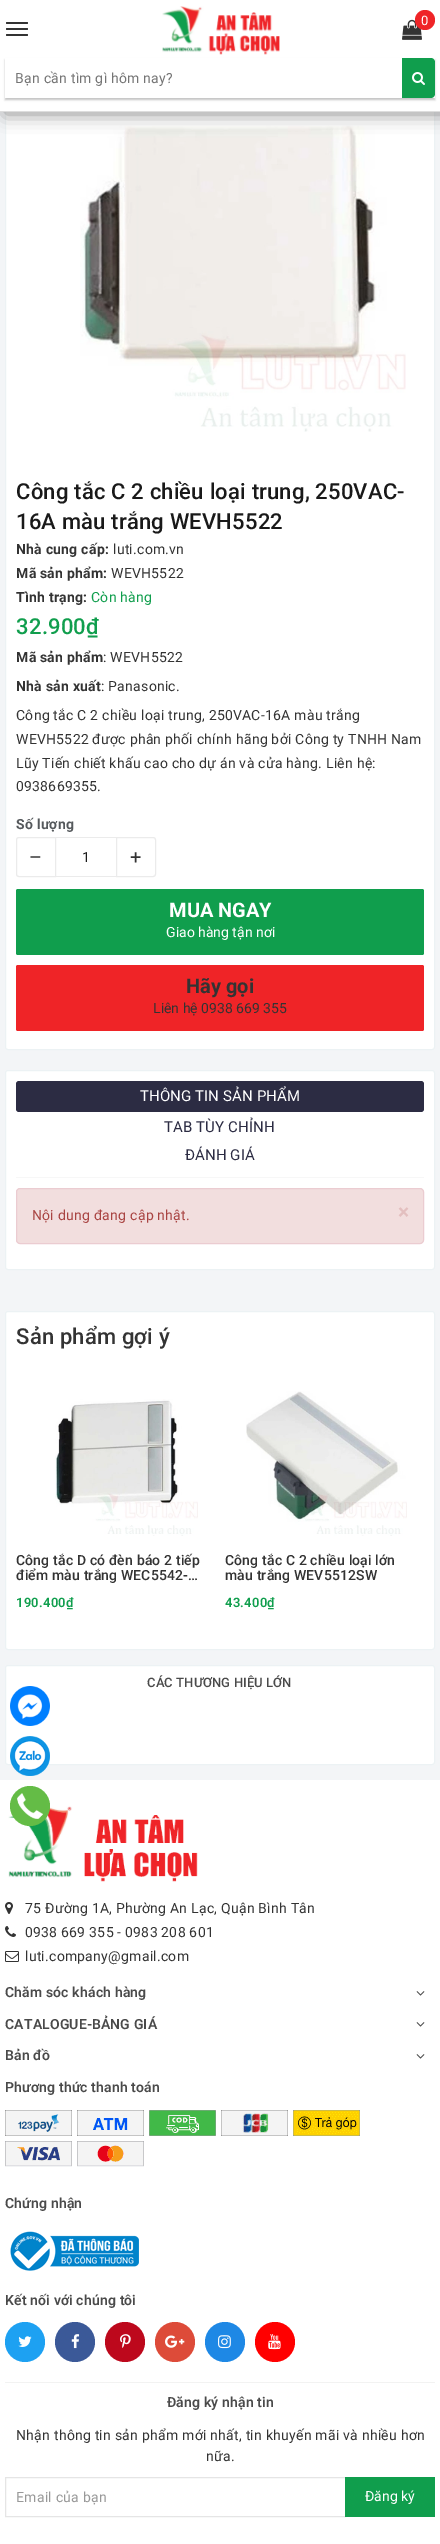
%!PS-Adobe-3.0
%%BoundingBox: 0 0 440 2544
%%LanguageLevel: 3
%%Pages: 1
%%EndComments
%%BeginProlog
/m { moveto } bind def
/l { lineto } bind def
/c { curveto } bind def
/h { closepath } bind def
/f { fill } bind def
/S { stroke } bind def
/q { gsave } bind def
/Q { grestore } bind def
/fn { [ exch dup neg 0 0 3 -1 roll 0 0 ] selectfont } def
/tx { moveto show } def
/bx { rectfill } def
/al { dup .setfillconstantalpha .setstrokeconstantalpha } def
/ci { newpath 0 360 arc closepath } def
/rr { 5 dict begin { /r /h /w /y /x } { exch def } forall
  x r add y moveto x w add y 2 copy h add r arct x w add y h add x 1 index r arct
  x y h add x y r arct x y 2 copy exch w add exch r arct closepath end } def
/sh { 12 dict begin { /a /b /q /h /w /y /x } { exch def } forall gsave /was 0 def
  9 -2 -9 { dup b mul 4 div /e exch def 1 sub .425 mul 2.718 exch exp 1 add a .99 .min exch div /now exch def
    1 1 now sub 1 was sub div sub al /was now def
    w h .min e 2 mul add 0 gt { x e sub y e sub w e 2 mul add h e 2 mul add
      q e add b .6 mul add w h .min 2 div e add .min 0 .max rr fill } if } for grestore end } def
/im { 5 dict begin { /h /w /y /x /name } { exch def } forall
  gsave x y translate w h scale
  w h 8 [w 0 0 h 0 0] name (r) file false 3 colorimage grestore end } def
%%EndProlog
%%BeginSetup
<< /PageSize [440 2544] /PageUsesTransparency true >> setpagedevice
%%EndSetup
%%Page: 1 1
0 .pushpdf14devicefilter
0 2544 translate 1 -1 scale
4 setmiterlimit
0.953 0.961 0.969 setrgbcolor
0 0 440 2544 bx
1 setgray
5.5 28.5 429 1021 2.5 rr q f Q
0.925 0.949 0.957 setrgbcolor
S
(image3.raw) 80 125 326 307 im
0.533 setgray
5 2 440 112 0 9 1 sh
1 setgray
0 0 440 111 bx
(image0.raw) 162 6 118 49 im
(image1.raw) 402 19 20 21 im
0.937 0.141 0.153 setrgbcolor
425 20 10 ci f
/Roboto-Regular 13 fn
1 setgray
421 25 m 0.25 0 (0) ashow
0.2 setgray
6 22 22 2 1 rr f
6 28 22 2 1 rr f
6 34 22 2 1 rr f
q
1 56 m 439 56 l 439 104 l 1 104 l h 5 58 m 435 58 l 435 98 l 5 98 l h eoclip newpath
0 setgray
5 60 430 40 0 1 0.24 sh
Q
/Roboto-Regular 14 fn
0.459 setgray
15 83 m 0.25 0 (Bạn cần tìm gì hôm nay?) ashow
0.063 0.62 0.302 setrgbcolor
402 58 m 431 58 l 433 58 435 60 435 62 c 435 94 l 435 96 433 98 431 98 c 402 98 l h f
(image2.raw) 412 72 13 13 im
0.867 setgray
0 111 440 1 bx
/Roboto-Medium 22 fn
0.098 setgray
16 499 m 0.2 0 (Công tắc C 2 chiều loại trung, 250VAC-) ashow
16 529 m 0.2 0 (16A màu trắng WEVH5522) ashow
/Roboto-Bold 14 fn
0.2 setgray
16 554 m 0.25 0 (Nhà cung cấp:) ashow
/Roboto-Regular 14 fn
113 554 m 0.25 0 (luti.com.vn) ashow
/Roboto-Bold 14 fn
16 578 m 0.25 0 (Mã sản phẩm:) ashow
/Roboto-Regular 14 fn
111 578 m 0.25 0 (WEVH5522) ashow
/Roboto-Bold 14 fn
16 602 m 0.25 0 (Tình trạng:) ashow
/Roboto-Regular 14 fn
0.063 0.62 0.302 setrgbcolor
91 602 m 0.25 0 (Còn hàng) ashow
/Roboto-Medium 22 fn
16 634 m 0.25 0 (32.900₫) ashow
/Roboto-Bold 14 fn
0.2 setgray
16 662 m 0.25 0 (Mã sản phẩm) ashow
/Roboto-Regular 14 fn
103 662 m 0.25 0 (: WEVH5522) ashow
/Roboto-Bold 14 fn
16 691 m 0.25 0 (Nhà sản xuất) ashow
/Roboto-Regular 14 fn
101 691 m 0.25 0 (: Panasonic.) ashow
16 720 m 0.25 0 (Công tắc C 2 chiều loại trung, 250VAC-16A màu trắng) ashow
16 744 m 0.25 0 (WEVH5522 được phân phối chính hãng bởi Công ty TNHH Nam) ashow
16 768 m 0.25 0 (Lũy Tiến chiết khấu cao cho dự án và cửa hàng. Liên hệ:) ashow
16 791 m 0.25 0 (0938669355.) ashow
/Roboto-Bold 14 fn
0.333 0.349 0.361 setrgbcolor
16 829 m 0.25 0 (Số lượng) ashow
0.922 setgray
19 837.5 m 55.5 837.5 l 55.5 876.5 l 19 876.5 l 17.5 876.5 16.5 875.5 16.5 874 c 16.5 840 l 16.5 838.5 17.5 837.5 19 837.5 c h S
/Roboto-Regular 20 fn
0.2 setgray
29 864 m 0.25 0 (–) ashow
0.922 setgray
56 837 60 1 bx
56 876 60 1 bx
/Roboto-Regular 14 fn
0.098 setgray
82 862 m 0.25 0 (1) ashow
0.922 setgray
116.5 837.5 m 153 837.5 l 154.5 837.5 155.5 838.5 155.5 840 c 155.5 874 l 155.5 875.5 154.5 876.5 153 876.5 c 116.5 876.5 l h S
/Roboto-Regular 20 fn
0.2 setgray
130 864 m 0.25 0 (+) ashow
0.063 0.62 0.302 setrgbcolor
16 889 408 66 2 rr f
/Roboto-Bold 20 fn
1 setgray
(MUA NGAY) 169 917 tx
/Roboto-Regular 14 fn
(Giao hàng tận nơi) 166 937 tx
0.937 0.141 0.153 setrgbcolor
16 965 408 66 2 rr f
/Roboto-Bold 20 fn
0.2 setgray
(Hãy gọi) 186 993 tx
/Roboto-Regular 14 fn
(Liên hệ 0938 669 355) 153 1013 tx
1 setgray
5.5 1070.5 429 199 2.5 rr q f Q
0.925 0.949 0.957 setrgbcolor
S
0.969 setgray
16 1177 408 1 bx
0.173 0.173 0.263 setrgbcolor
16 1081 408 31 3 rr f
/Roboto-Regular 15 fn
1 setgray
140 1101 m 0.1 0 (THÔNG TIN SẢN PHẨM) ashow
0.173 0.173 0.263 setrgbcolor
164 1132 m 0.1 0 (TAB TÙY CHỈNH) ashow
185 1160 m 0.1 0 (ĐÁNH GIÁ) ashow
0.949 0.871 0.871 setrgbcolor
16.5 1188.5 407 55 3.5 rr q f Q
0.922 0.8 0.82 setrgbcolor
S
/Roboto-Regular 14 fn
0.663 0.267 0.259 setrgbcolor
32 1220 m 0.25 0 (Nội dung đang cập nhật.) ashow
/Roboto-Bold 21 fn
0.89 0.749 0.749 setrgbcolor
398 1219 m 0.25 0 (×) ashow
1 setgray
5.5 1311.5 429 338 2.5 rr q f Q
0.925 0.949 0.957 setrgbcolor
S
/Roboto-Medium 22 fn
0.2 setgray
16 1344 m 0.2 0 (Sản phẩm gợi ý) ashow
(image4.raw) 55 1399 143 137 im
/Roboto-Medium 14 fn
16 1565 m 0.15 0 (Công tắc D có đèn báo 2 tiếp) ashow
16 1580 m 0.15 0 (điểm màu trắng WEC5542-…) ashow
/Roboto-SemiBold 13 fn
0.063 0.62 0.302 setrgbcolor
16 1607 m 0.25 0 (190.400₫) ashow
(image5.raw) 246 1391 161 145 im
/Roboto-Medium 14 fn
0.2 setgray
225 1565 m 0.15 0 (Công tắc C 2 chiều loại lớn) ashow
225 1580 m 0.15 0 (màu trắng WEV5512SW) ashow
/Roboto-SemiBold 13 fn
0.063 0.62 0.302 setrgbcolor
225 1607 m 0.25 0 (43.400₫) ashow
1 setgray
5.5 1665.5 429 99 2.5 rr q f Q
0.925 0.949 0.957 setrgbcolor
S
/Roboto-Medium 13 fn
0.29 setgray
147 1687 m 0.1 0 (CÁC THƯƠNG HIỆU LỚN) ashow
1 setgray
0 1780 440 764 bx
(image6.raw) 10 1686 40 40 im
(image7.raw) 10 1736 40 40 im
(image9.raw) 8 1804 190 78 im
0.392 0.737 0.275 setrgbcolor
30 1806 20 ci f
(image8.raw) 17 1793 26 26 im
(image10.raw) 5 1902 8 12 im
/Roboto-Regular 14 fn
0.2 setgray
25 1913 m 0.25 0 (75 Đường 1A, Phường An Lạc, Quận Bình Tân) ashow
(image11.raw) 5 1926 11 11 im
25 1937 m 0.25 0 (0938 669 355 - 0983 208 601) ashow
(image12.raw) 5 1951 14 11 im
25 1961 m 0.25 0 (luti.company@gmail.com) ashow
/Roboto-SemiBold 14 fn
0.29 setgray
5 1997 m 0.15 0 (Chăm sóc khách hàng) ashow
(image13.raw) 416 1991 9 5 im
5 2029 m 0.15 0 (CATALOGUE-BẢNG GIÁ) ashow
(image13.raw) 416 2022 9 5 im
5 2060 m 0.15 0 (Bản đồ) ashow
(image13.raw) 416 2054 9 5 im
5 2092 m 0.15 0 (Phương thức thanh toán) ashow
(image14.raw) 5 2110 67 26 im
(image15.raw) 77 2110 67 26 im
(image16.raw) 149 2110 67 26 im
(image17.raw) 221 2110 67 26 im
(image18.raw) 293 2110 67 26 im
(image19.raw) 5 2141 67 26 im
(image20.raw) 77 2141 67 26 im
5 2208 m 0.15 0 (Chứng nhận) ashow
(image21.raw) 10 2231 129 40 im
5 2305 m 0.15 0 (Kết nối với chúng tôi) ashow
0.114 0.631 0.949 setrgbcolor
25 2342 20 ci f
(image22.raw) 18 2336 14 11 im
0.231 0.349 0.596 setrgbcolor
75 2342 20 ci f
(image23.raw) 71 2334 9 15 im
0.741 0.031 0.11 setrgbcolor
125 2342 20 ci f
(image24.raw) 120 2334 11 14 im
0.867 0.294 0.224 setrgbcolor
175 2342 20 ci f
(image25.raw) 165 2335 20 13 im
0.118 0.533 0.898 setrgbcolor
225 2342 20 ci f
(image26.raw) 218 2335 13 14 im
1 0 0 setrgbcolor
275 2342 20 ci f
(image27.raw) 268 2334 13 16 im
0.949 setgray
5 2382 430 1 bx
0.29 setgray
167 2407 m 0.15 0 (Đăng ký nhận tin) ashow
/Roboto-Regular 14 fn
0.2 setgray
16 2440 m 0.25 0 (Nhận thông tin sản phẩm mới nhất, tin khuyến mãi và nhiều hơn) ashow
206 2461 m 0.25 0 (nữa.) ashow
0.898 setgray
5.5 2477.5 340 39 rectstroke
0.6 setgray
16 2502 m 0.25 0 (Email của bạn) ashow
0.063 0.62 0.302 setrgbcolor
345 2477 90 40 bx
1 setgray
(Đăng ký) 365 2501 tx
.poppdf14devicefilter showpage
%%EOF
